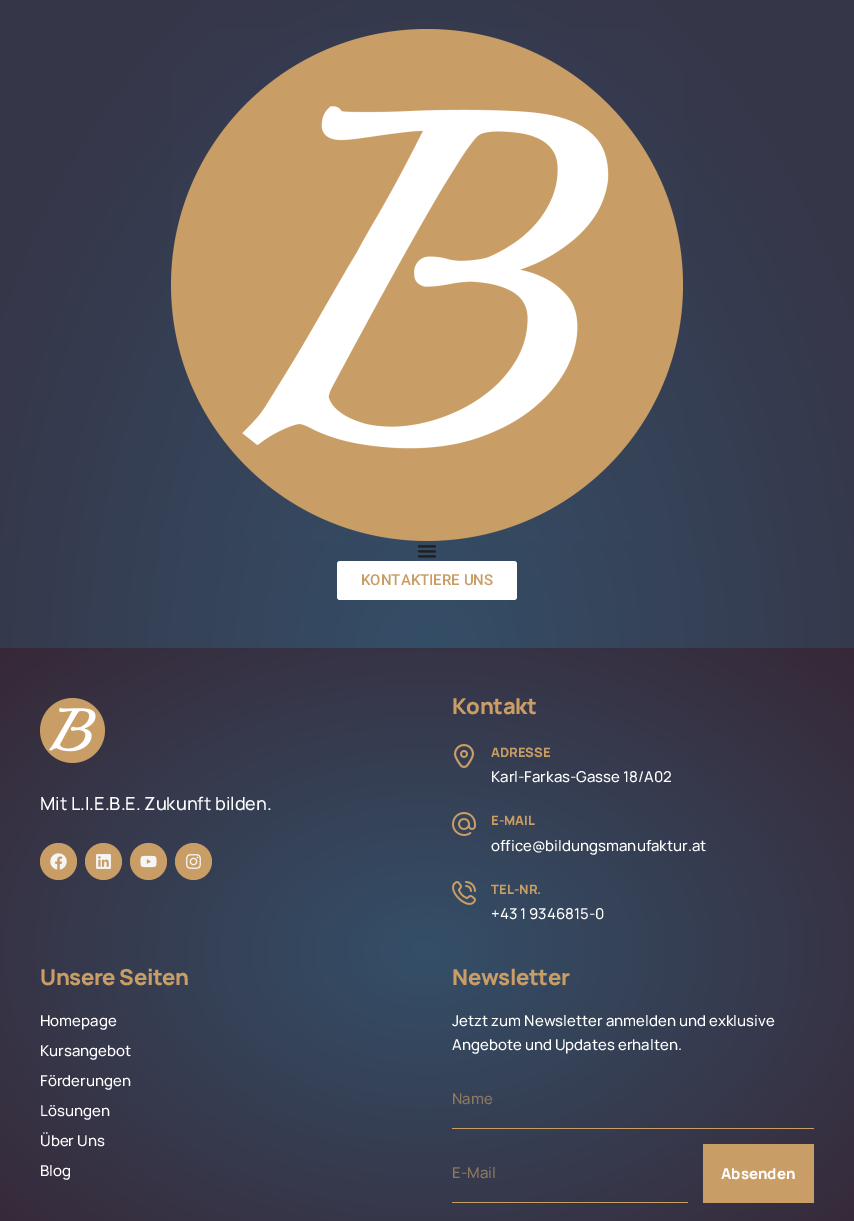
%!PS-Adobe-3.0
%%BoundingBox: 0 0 854 1221
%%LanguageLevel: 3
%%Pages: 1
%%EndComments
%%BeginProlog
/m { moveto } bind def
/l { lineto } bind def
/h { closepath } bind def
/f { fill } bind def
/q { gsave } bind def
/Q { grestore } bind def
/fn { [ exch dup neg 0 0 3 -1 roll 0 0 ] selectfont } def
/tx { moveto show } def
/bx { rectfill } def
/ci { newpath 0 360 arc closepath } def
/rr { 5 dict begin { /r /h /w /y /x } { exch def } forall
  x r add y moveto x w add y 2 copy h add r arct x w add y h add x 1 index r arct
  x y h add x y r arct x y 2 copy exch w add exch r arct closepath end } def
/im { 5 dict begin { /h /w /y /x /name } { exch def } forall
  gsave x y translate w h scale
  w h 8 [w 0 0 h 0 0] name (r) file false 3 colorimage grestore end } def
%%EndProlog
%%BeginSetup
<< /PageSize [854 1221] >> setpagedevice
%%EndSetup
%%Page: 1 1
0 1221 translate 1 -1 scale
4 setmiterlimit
1 setgray
0 0 854 1221 bx
q 0 0 m 854 0 l 854 648 l 0 648 l h clip newpath 427 680 translate 604 961 scale
<< /ShadingType 3 /ColorSpace /DeviceRGB /Coords [0 0 0 0 0 1] /Extend [true true] /Function << /FunctionType 3 /Domain [0 1] /Functions [<< /FunctionType 2 /Domain [0 1] /C0 [0.204 0.31 0.408] /C1 [0.212 0.212 0.286] /N 1 >> << /FunctionType 2 /Domain [0 1] /C0 [0.212 0.212 0.286] /C1 [0.212 0.212 0.286] /N 1 >>] /Bounds [0.81] /Encode [0 1 0 1] >> >> shfill Q
(image0.raw) 171 29 512 512 im
(image1.raw) 417 545 20 13 im
337 561 180 39 3 rr f
/Roboto-Medium 15 fn
0.788 0.616 0.4 setrgbcolor
(KONTAKTIERE UNS) 361 585 tx
q 0 648 m 854 648 l 854 1221 l 0 1221 l h clip newpath 427 951 translate 604 428 scale
<< /ShadingType 3 /ColorSpace /DeviceRGB /Coords [0 0 0 0 0 1] /Extend [true true] /Function << /FunctionType 2 /Domain [0 1] /C0 [0.204 0.31 0.408] /C1 [0.216 0.157 0.216] /N 1 >> >> shfill Q
(image2.raw) 40 698 65 65 im
/Manrope-Medium 18 fn
1 setgray
(Mit L.I.E.B.E. Zukunft bilden.) 40 810 tx
0.788 0.616 0.4 setrgbcolor
58.5 861.5 18.5 ci f
(image3.raw) 50 853 17 17 im
103.5 861.5 18.5 ci f
(image4.raw) 96 854 15 15 im
148.5 861.5 18.5 ci f
(image5.raw) 140 855 17 13 im
193.5 861.5 18.5 ci f
(image6.raw) 186 854 15 15 im
/Manrope-ExtraBold 22 fn
452 714 m -0.4 0 (Kontakt) ashow
(image7.raw) 454 744 20 24 im
/Manrope-ExtraBold 13 fn
(ADRESSE) 491 757 tx
/Manrope-Medium 15 fn
1 setgray
(Karl-Farkas-Gasse 18/A02) 491 782 tx
(image8.raw) 452 812 24 24 im
/Manrope-ExtraBold 13 fn
0.788 0.616 0.4 setrgbcolor
(E-MAIL) 491 825 tx
/Manrope-Medium 15 fn
1 setgray
(office@bildungsmanufaktur.at) 491 851 tx
(image9.raw) 452 881 24 24 im
/Manrope-ExtraBold 13 fn
0.788 0.616 0.4 setrgbcolor
(TEL-NR.) 491 894 tx
/Manrope-Medium 15 fn
1 setgray
(+43 1 9346815-0) 491 919 tx
/Manrope-ExtraBold 22 fn
0.788 0.616 0.4 setrgbcolor
40 985 m -0.4 0 (Unsere Seiten) ashow
/Manrope-Medium 15 fn
1 setgray
(Homepage) 40 1026 tx
(Kursangebot) 40 1056 tx
(Förderungen) 40 1086 tx
(Lösungen) 40 1116 tx
(Über Uns) 40 1146 tx
(Blog) 40 1176 tx
/Manrope-ExtraBold 22 fn
0.788 0.616 0.4 setrgbcolor
452 985 m -0.4 0 (Newsletter) ashow
/Manrope-Medium 15 fn
1 setgray
(Jetzt zum Newsletter anmelden und exklusive) 452 1026 tx
(Angebote und Updates erhalten.) 452 1050 tx
0.788 0.616 0.4 setrgbcolor
452 1128 362 1 bx
0.557 0.471 0.376 setrgbcolor
(Name) 452 1104 tx
0.788 0.616 0.4 setrgbcolor
452 1202 236 1 bx
0.557 0.471 0.376 setrgbcolor
(E-Mail) 452 1178 tx
0.788 0.616 0.4 setrgbcolor
703 1144 111 59 bx
/Manrope-ExtraBold 15 fn
1 setgray
(Absenden) 721 1179 tx
showpage
%%EOF
